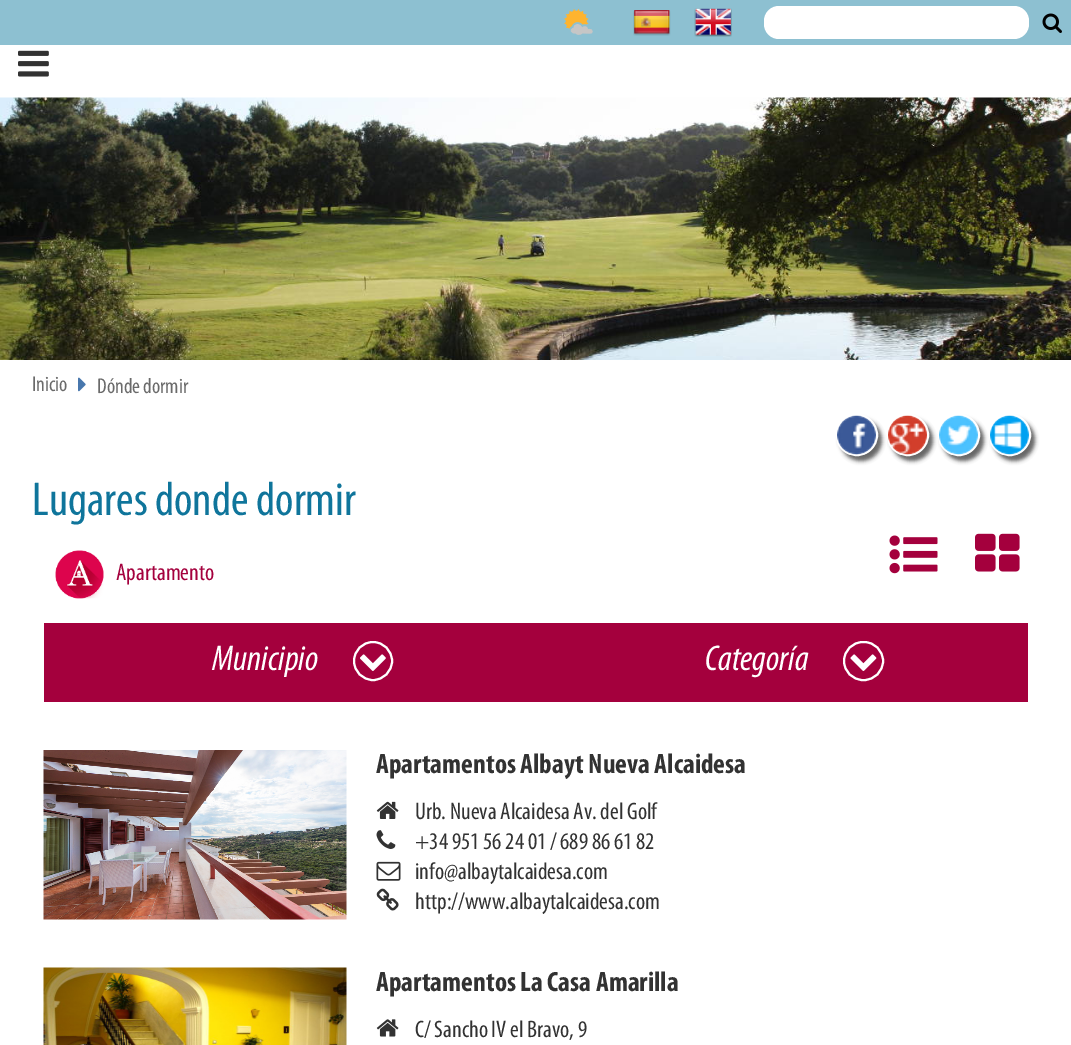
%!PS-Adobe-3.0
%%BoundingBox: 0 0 1071 1045
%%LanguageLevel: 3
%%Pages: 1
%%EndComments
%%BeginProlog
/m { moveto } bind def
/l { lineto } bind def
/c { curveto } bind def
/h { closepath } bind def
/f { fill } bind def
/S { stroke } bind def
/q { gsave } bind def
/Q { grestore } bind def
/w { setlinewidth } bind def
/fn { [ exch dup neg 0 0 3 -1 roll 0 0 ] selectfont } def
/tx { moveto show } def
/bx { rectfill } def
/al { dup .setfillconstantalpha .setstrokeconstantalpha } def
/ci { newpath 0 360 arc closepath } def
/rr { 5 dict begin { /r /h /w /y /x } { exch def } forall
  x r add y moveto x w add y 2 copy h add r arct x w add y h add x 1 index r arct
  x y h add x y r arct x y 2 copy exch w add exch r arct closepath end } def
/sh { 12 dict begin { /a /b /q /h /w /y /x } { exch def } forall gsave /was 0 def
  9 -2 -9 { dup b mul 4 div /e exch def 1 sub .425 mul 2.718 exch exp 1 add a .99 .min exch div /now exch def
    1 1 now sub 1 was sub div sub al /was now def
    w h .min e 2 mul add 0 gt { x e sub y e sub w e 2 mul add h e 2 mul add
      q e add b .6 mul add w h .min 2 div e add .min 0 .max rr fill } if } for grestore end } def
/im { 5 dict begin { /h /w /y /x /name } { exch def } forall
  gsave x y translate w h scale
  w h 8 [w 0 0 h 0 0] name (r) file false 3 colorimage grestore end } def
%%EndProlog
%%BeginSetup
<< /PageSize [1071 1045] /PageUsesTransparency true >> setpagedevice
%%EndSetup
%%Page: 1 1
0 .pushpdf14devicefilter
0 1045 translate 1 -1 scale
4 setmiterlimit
1 setgray
0 0 1071 1045 bx
0.553 0.753 0.82 setrgbcolor
0 0 1071 45 bx
(image0.raw) 563 8 30 27 im
(image1.raw) 633 10 38 26 im
(image2.raw) 694 8 38 29 im
1 setgray
764 6 265 33 15 rr f
(image3.raw) 1042 13 20 20 im
(image4.raw) 18 50 31 27 im
(image5.raw) 0 97 1071 263 im
/Myriad-Regular 21.5 fn
0.416 setgray
(Inicio) 32 391 tx
(image6.raw) 78 377 8 15 im
(Dónde dormir) 97 393 tx
q
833 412 m 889 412 l 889 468 l 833 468 l h 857 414 m 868.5 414 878 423.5 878 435 c 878 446.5 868.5 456 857 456 c 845.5 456 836 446.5 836 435 c 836 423.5 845.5 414 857 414 c h eoclip newpath
0.4 setgray
840 419 42 42 21 2 1 sh
Q
1 setgray
2 w
857 435 20 ci S
(image7.raw) 837 415 39 40 im
q
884 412 m 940 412 l 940 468 l 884 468 l h 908 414 m 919.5 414 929 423.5 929 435 c 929 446.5 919.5 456 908 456 c 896.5 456 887 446.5 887 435 c 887 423.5 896.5 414 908 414 c h eoclip newpath
0.4 setgray
891 419 42 42 21 2 1 sh
Q
908 435 20 ci S
(image8.raw) 888 415 39 40 im
q
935 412 m 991 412 l 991 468 l 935 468 l h 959 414 m 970.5 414 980 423.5 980 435 c 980 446.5 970.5 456 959 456 c 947.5 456 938 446.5 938 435 c 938 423.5 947.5 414 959 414 c h eoclip newpath
0.4 setgray
942 419 42 42 21 2 1 sh
Q
959 435 20 ci S
(image9.raw) 939 415 39 40 im
0.4 setgray
993 419 42 42 21 2 1 sh
1 setgray
1010 435 20 ci S
(image10.raw) 990 415 39 40 im
/Myriad-Regular 48 fn
0.059 0.459 0.608 setrgbcolor
(Lugares donde dormir) 32 515 tx
(image11.raw) 55 550 49 49 im
/Myriad-Regular 24 fn
0.643 0 0.239 setrgbcolor
(Apartamento) 116 580 tx
(image12.raw) 889 535 49 39 im
(image13.raw) 975 533 45 39 im
44 623 984 79 bx
/Myriad-Italic 36 fn
1 setgray
(Municipio) 212 670 tx
373 661 19 ci S
(image14.raw) 360 654 26 17 im
(Categoría) 705 670 tx
844 642 39 38 19 rr S
(image15.raw) 850 654 27 17 im
(image16.raw) 43 750 304 170 im
/Myriad-Bold 28.1 fn
0.196 setgray
(Apartamentos Albayt Nueva Alcaidesa) 376 773 tx
(image17.raw) 376 801 23 18 im
/Myriad-Regular 24 fn
(Urb. Nueva Alcaidesa Av. del Golf) 415 819 tx
(image18.raw) 376 830 20 19 im
(+34 951 56 24 01 / 689 86 61 82) 415 849 tx
(image19.raw) 376 861 25 20 im
(info@albaytalcaidesa.com) 415 879 tx
(image20.raw) 376 888 23 23 im
(http://www.albaytalcaidesa.com) 415 909 tx
(image21.raw) 43 967 304 78 im
/Myriad-Bold 28.1 fn
(Apartamentos La Casa Amarilla) 376 991 tx
(image22.raw) 376 1019 23 18 im
/Myriad-Regular 24 fn
(C/ Sancho IV el Bravo, 9) 415 1037 tx
.poppdf14devicefilter showpage
%%EOF
